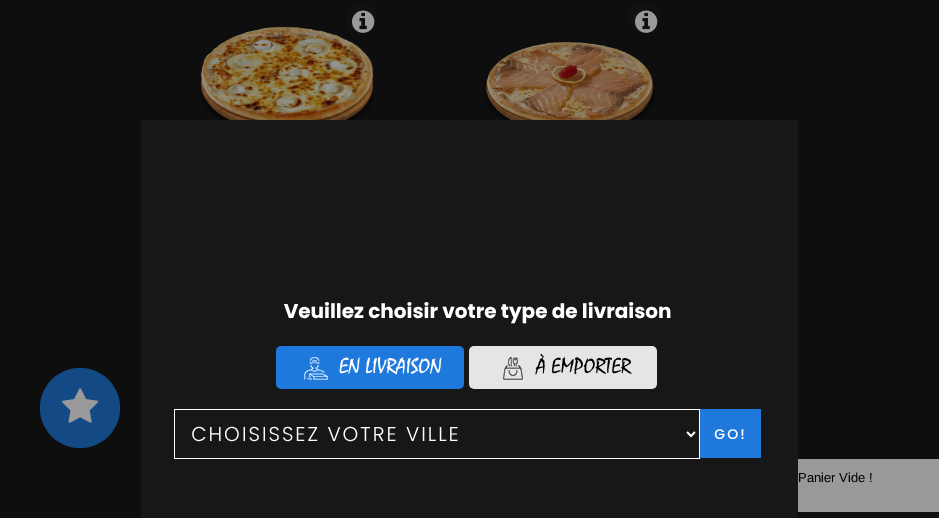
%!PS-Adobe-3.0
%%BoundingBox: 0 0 939 518
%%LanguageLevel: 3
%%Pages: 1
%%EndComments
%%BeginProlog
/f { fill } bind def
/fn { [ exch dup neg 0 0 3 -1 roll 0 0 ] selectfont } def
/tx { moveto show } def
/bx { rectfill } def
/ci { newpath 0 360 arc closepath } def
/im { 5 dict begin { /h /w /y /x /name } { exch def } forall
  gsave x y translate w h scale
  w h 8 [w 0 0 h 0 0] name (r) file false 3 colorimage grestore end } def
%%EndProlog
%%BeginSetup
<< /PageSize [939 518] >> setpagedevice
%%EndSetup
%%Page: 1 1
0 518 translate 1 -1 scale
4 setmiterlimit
0.055 setgray
0 0 939 518 bx
(image0.raw) 141 120 657 398 im
(image2.raw) 200 26 175 94 im
0.067 setgray
361 18 15 ci f
(image1.raw) 352 10 23 23 im
644 18 15 ci f
(image1.raw) 635 10 23 23 im
(image3.raw) 484 42 172 78 im
0.075 0.286 0.522 setrgbcolor
80 408 40 ci f
(image4.raw) 62 388 37 35 im
0.6 setgray
798 459 141 53 bx
/LiberationSans-Regular 13 fn
0 setgray
(Panier Vide !) 798 482 tx
showpage
%%EOF
